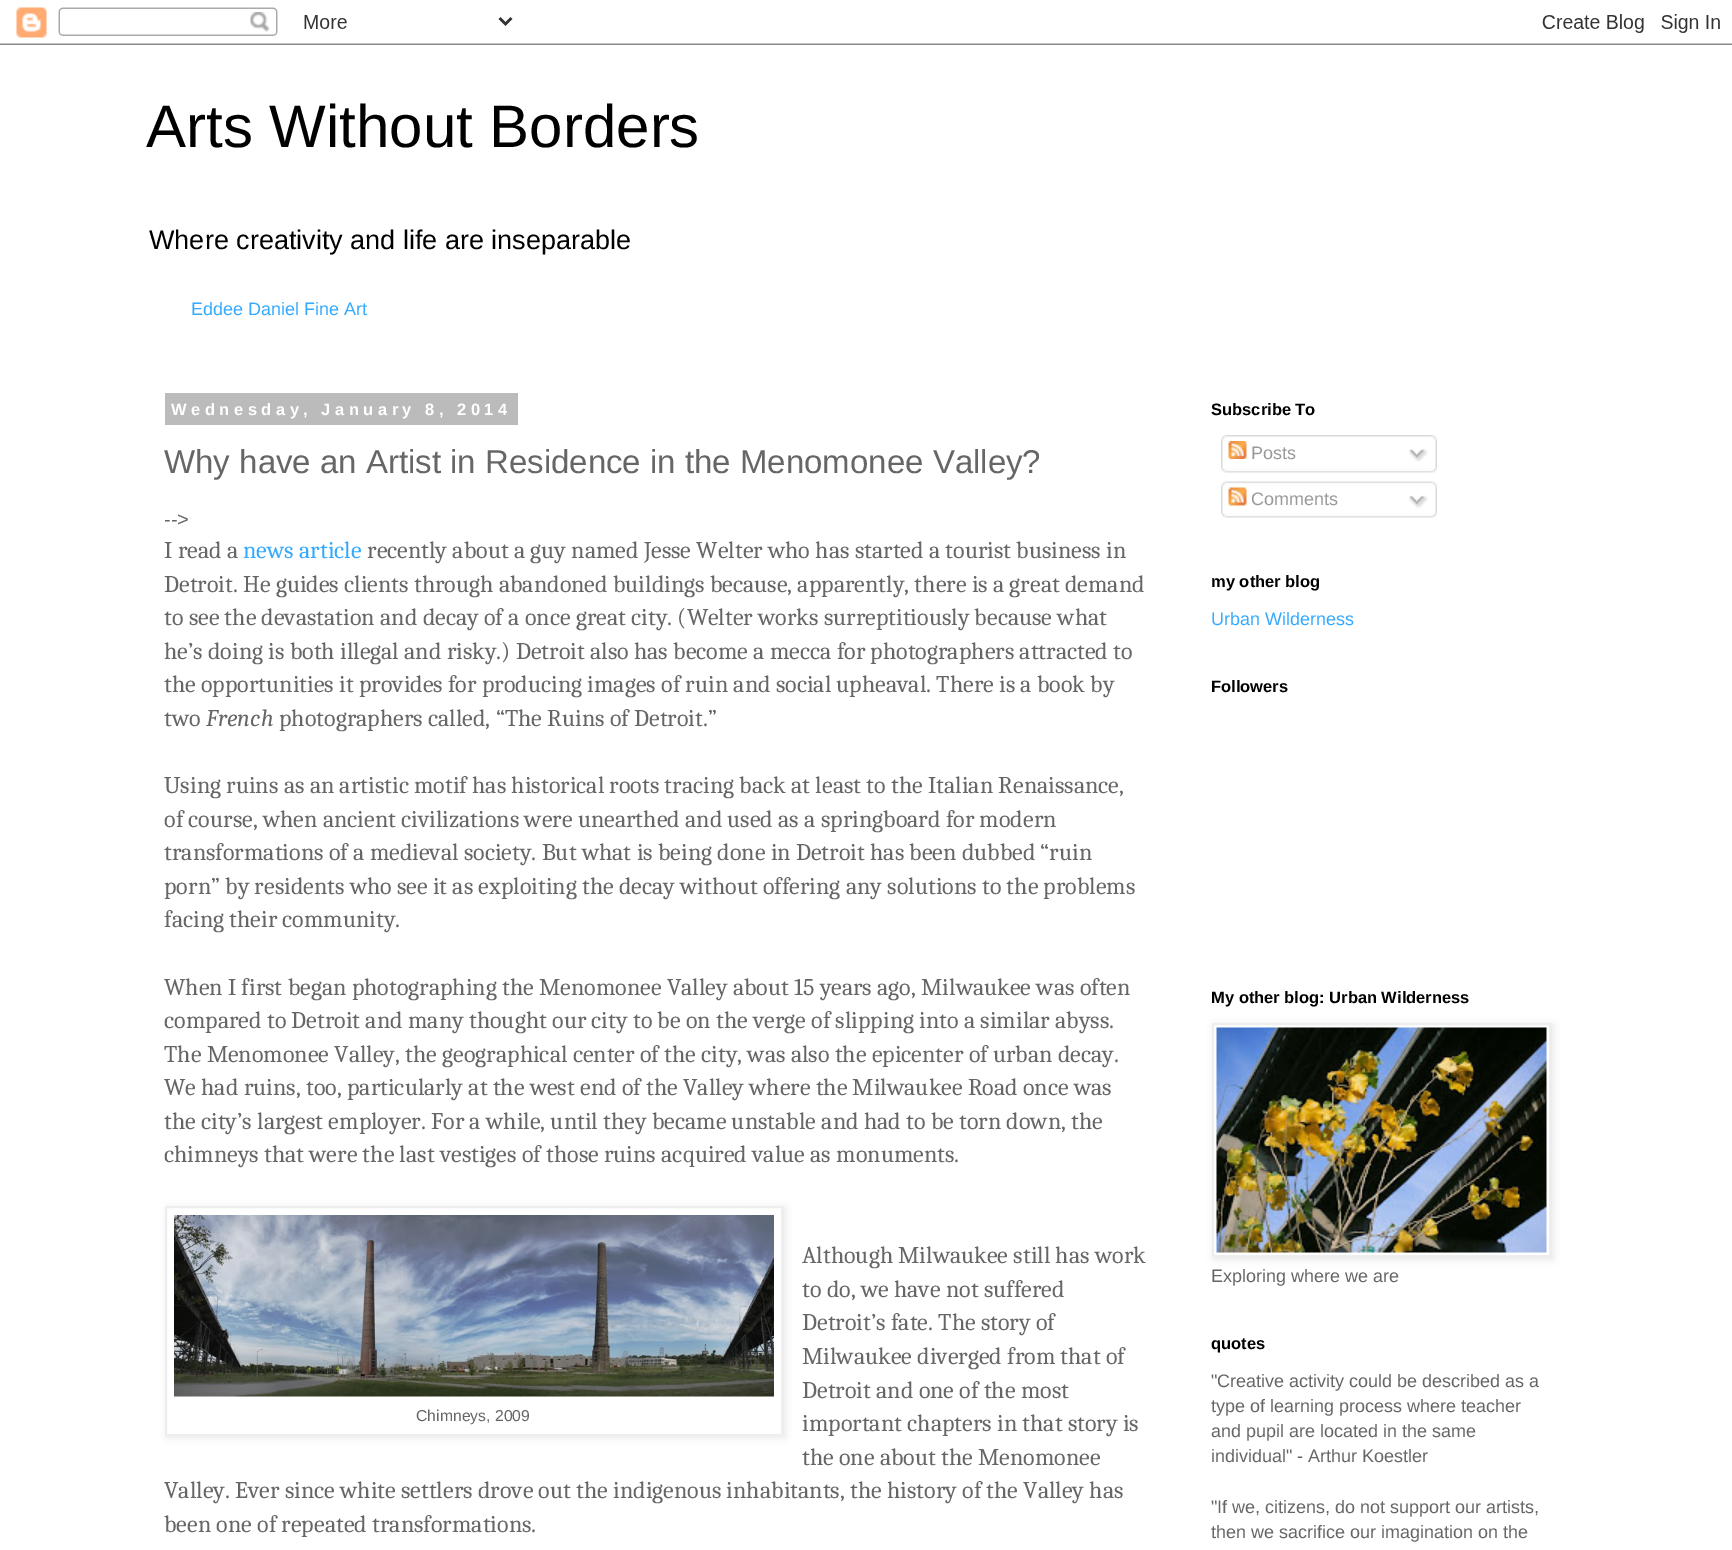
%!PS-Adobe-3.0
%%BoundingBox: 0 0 1732 1550
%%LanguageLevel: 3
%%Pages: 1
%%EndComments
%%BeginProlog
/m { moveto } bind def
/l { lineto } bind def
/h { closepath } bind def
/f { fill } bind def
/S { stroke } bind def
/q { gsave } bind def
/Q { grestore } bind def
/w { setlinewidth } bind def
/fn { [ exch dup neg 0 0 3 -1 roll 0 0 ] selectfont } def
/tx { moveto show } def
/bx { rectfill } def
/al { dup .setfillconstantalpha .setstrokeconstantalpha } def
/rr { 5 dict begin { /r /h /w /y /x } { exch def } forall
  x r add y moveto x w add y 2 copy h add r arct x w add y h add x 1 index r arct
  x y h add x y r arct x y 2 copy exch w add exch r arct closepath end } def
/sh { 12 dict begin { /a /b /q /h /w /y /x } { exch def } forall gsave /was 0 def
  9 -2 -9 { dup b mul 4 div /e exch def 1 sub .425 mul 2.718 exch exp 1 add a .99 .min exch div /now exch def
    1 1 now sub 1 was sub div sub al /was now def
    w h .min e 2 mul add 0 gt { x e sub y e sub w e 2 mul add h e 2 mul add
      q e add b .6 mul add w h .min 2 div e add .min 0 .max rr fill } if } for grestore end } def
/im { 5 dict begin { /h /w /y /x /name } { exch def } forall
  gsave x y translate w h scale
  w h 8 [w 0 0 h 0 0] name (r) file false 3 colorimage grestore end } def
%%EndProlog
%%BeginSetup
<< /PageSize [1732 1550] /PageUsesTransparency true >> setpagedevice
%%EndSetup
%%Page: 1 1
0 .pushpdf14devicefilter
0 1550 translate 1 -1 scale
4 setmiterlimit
1 setgray
0 0 1732 1550 bx
(image0.raw) 0 7 1732 38 im
/LiberationSans-Regular 60 fn
0 setgray
(Arts Without Borders) 146 147 tx
/LiberationSans-Regular 27 fn
(Where creativity and life are inseparable) 149 249 tx
/LiberationSans-Regular 18 fn
0.2 0.667 1 setrgbcolor
(Eddee Daniel Fine Art) 191 315 tx
0.733 setgray
165 393 353 32 bx
/LiberationSans-Bold 16.5 fn
1 setgray
171 415 m 4.5 0 (Wednesday, January 8, 2014) ashow
/LiberationSans-Regular 33 fn
0.4 setgray
(Why have an Artist in Residence in the Menomonee Valley?) 164 473 tx
/LiberationSans-Regular 20 fn
(-->) 164 526 tx
/Caladea-Regular 24 fn
(I read a) 164 558 tx
0.2 0.667 1 setrgbcolor
(news article) 243 558 tx
0.4 setgray
(recently about a guy named Jesse Welter who has started a tourist business in) 367 558 tx
(Detroit. He guides clients through abandoned buildings because, apparently, there is a great demand) 164 592 tx
(to see the devastation and decay of a once great city. \(Welter works surreptitiously because what) 164 625 tx
(he’s doing is both illegal and risky.\) Detroit also has become a mecca for photographers attracted to) 164 659 tx
(the opportunities it provides for producing images of ruin and social upheaval. There is a book by) 164 692 tx
(two) 164 726 tx
/Caladea-Italic 24 fn
(French) 206 726 tx
/Caladea-Regular 24 fn
(photographers called, “The Ruins of Detroit.”) 279 726 tx
(Using ruins as an artistic motif has historical roots tracing back at least to the Italian Renaissance,) 164 793 tx
(of course, when ancient civilizations were unearthed and used as a springboard for modern) 164 827 tx
(transformations of a medieval society. But what is being done in Detroit has been dubbed “ruin) 164 860 tx
(porn” by residents who see it as exploiting the decay without offering any solutions to the problems) 164 894 tx
(facing their community.) 164 927 tx
(When I first began photographing the Menomonee Valley about 15 years ago, Milwaukee was often) 164 995 tx
(compared to Detroit and many thought our city to be on the verge of slipping into a similar abyss.) 164 1028 tx
(The Menomonee Valley, the geographical center of the city, was also the epicenter of urban decay.) 164 1062 tx
(We had ruins, too, particularly at the west end of the Valley where the Milwaukee Road once was) 164 1095 tx
(the city’s largest employer. For a while, until they became unstable and had to be torn down, the) 164 1129 tx
(chimneys that were the last vestiges of those ruins acquired value as monuments.) 164 1162 tx
(Although Milwaukee still has work) 802 1263 tx
(to do, we have not suffered) 802 1297 tx
(Detroit’s fate. The story of) 802 1330 tx
(Milwaukee diverged from that of) 802 1364 tx
(Detroit and one of the most) 802 1398 tx
(important chapters in that story is) 802 1431 tx
(the one about the Menomonee) 802 1465 tx
(Valley. Ever since white settlers drove out the indigenous inhabitants, the history of the Valley has) 164 1498 tx
(been one of repeated transformations.) 164 1532 tx
0 setgray
167 1208 618 229 0 4 0.1 sh
1 setgray
166 1207 m 782 1207 l 782 1435 l 166 1435 l h q f Q
0.933 setgray
2 w
S
(image1.raw) 174 1215 600 182 im
/LiberationSans-Regular 15.75 fn
0.4 setgray
(Chimneys, 2009) 416 1421 tx
/LiberationSans-Bold 16.5 fn
0 setgray
(Subscribe To) 1211 415 tx
(image2.raw) 1221 435 216 33 im
(image3.raw) 1228 441 19 18 im
/LiberationSans-Regular 18 fn
0.6 setgray
(Posts) 1251 459 tx
(image4.raw) 1408 448 20 14 im
(image5.raw) 1221 468 216 5 im
(image6.raw) 1221 481 216 32 im
(image7.raw) 1228 487 19 19 im
(Comments) 1251 505 tx
(image8.raw) 1408 495 20 14 im
(image5.raw) 1221 513 216 5 im
/LiberationSans-Bold 16.5 fn
0 setgray
(my other blog) 1211 587 tx
/LiberationSans-Regular 18 fn
0.2 0.667 1 setrgbcolor
(Urban Wilderness) 1211 625 tx
/LiberationSans-Bold 16.5 fn
0 setgray
(Followers) 1211 692 tx
(My other blog: Urban Wilderness) 1211 1003 tx
q
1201 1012 m 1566 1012 l 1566 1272 l 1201 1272 l h 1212 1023 m 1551 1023 l 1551 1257 l 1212 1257 l h eoclip newpath
1214 1025 339 234 0 4 0.1 sh
Q
0.933 setgray
1213 1024 337 232 rectstroke
(image9.raw) 1216 1027 331 226 im
/LiberationSans-Regular 18 fn
0.4 setgray
(Exploring where we are) 1211 1282 tx
/LiberationSans-Bold 16.5 fn
0 setgray
(quotes) 1211 1349 tx
/LiberationSans-Regular 18 fn
0.4 setgray
("Creative activity could be described as a) 1211 1387 tx
(type of learning process where teacher) 1211 1412 tx
(and pupil are located in the same) 1211 1437 tx
(individual" - Arthur Koestler) 1211 1462 tx
("If we, citizens, do not support our artists,) 1211 1513 tx
(then we sacrifice our imagination on the) 1211 1538 tx
.poppdf14devicefilter showpage
%%EOF
